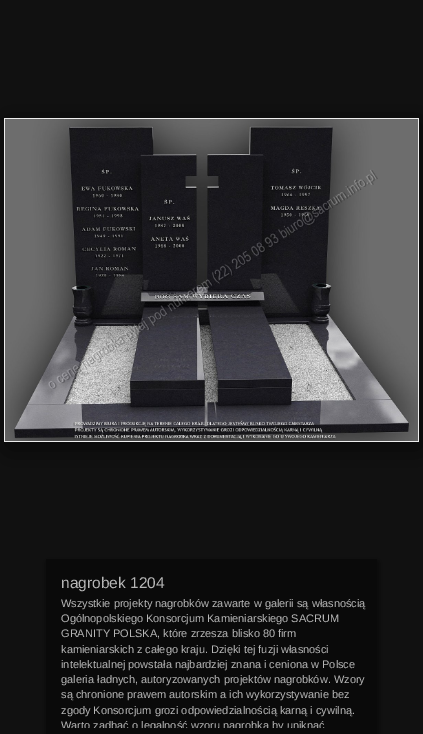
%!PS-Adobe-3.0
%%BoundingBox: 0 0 423 734
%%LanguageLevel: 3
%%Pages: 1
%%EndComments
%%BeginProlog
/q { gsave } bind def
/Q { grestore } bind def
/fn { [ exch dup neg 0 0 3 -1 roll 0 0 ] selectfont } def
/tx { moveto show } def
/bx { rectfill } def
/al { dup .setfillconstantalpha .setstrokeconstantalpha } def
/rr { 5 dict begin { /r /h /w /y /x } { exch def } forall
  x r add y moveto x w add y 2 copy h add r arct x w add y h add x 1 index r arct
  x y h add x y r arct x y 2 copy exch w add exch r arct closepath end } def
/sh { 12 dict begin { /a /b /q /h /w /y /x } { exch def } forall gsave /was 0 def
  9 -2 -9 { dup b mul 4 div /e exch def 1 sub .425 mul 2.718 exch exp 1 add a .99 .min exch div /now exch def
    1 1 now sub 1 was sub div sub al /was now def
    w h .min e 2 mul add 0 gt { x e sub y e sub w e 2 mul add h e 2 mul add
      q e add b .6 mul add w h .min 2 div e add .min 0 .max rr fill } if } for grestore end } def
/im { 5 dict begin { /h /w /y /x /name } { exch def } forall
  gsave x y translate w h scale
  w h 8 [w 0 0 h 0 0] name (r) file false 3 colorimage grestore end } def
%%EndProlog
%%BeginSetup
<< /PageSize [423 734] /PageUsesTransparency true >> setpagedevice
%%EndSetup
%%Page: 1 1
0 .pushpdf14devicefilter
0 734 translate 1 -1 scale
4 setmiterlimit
0.067 setgray
0 0 423 734 bx
0 setgray
7 124 415 324 0 16 0.6 sh
0.929 setgray
4 118 415 324 bx
(image0.raw) 5 119 413 322 im
0 setgray
47 562 331 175 0 4 0.6 sh
0.039 setgray
46 559 331 175 bx
/LiberationSans-Regular 15.5 fn
0.714 setgray
(nagrobek 1204) 61 588 tx
/LiberationSans-Regular 11 fn
(Wszystkie projekty nagrobków zawarte w galerii są własnością) 61 607 tx
(Ogólnopolskiego Konsorcjum Kamieniarskiego SACRUM) 61 622 tx
(GRANITY POLSKA, które zrzesza blisko 80 firm) 61 637 tx
(kamieniarskich z całego kraju. Dzięki tej fuzji własności) 61 653 tx
(intelektualnej powstała najbardziej znana i ceniona w Polsce) 61 668 tx
(galeria ładnych, autoryzowanych projektów nagrobków. Wzory) 61 683 tx
(są chronione prawem autorskim a ich wykorzystywanie bez) 61 698 tx
(zgody Konsorcjum grozi odpowiedzialnością karną i cywilną.) 61 714 tx
q
61 596 308 132 rectclip
(Warto zadbać o legalność wzoru nagrobka by uniknąć) 61 729 tx
Q
.poppdf14devicefilter showpage
%%EOF
